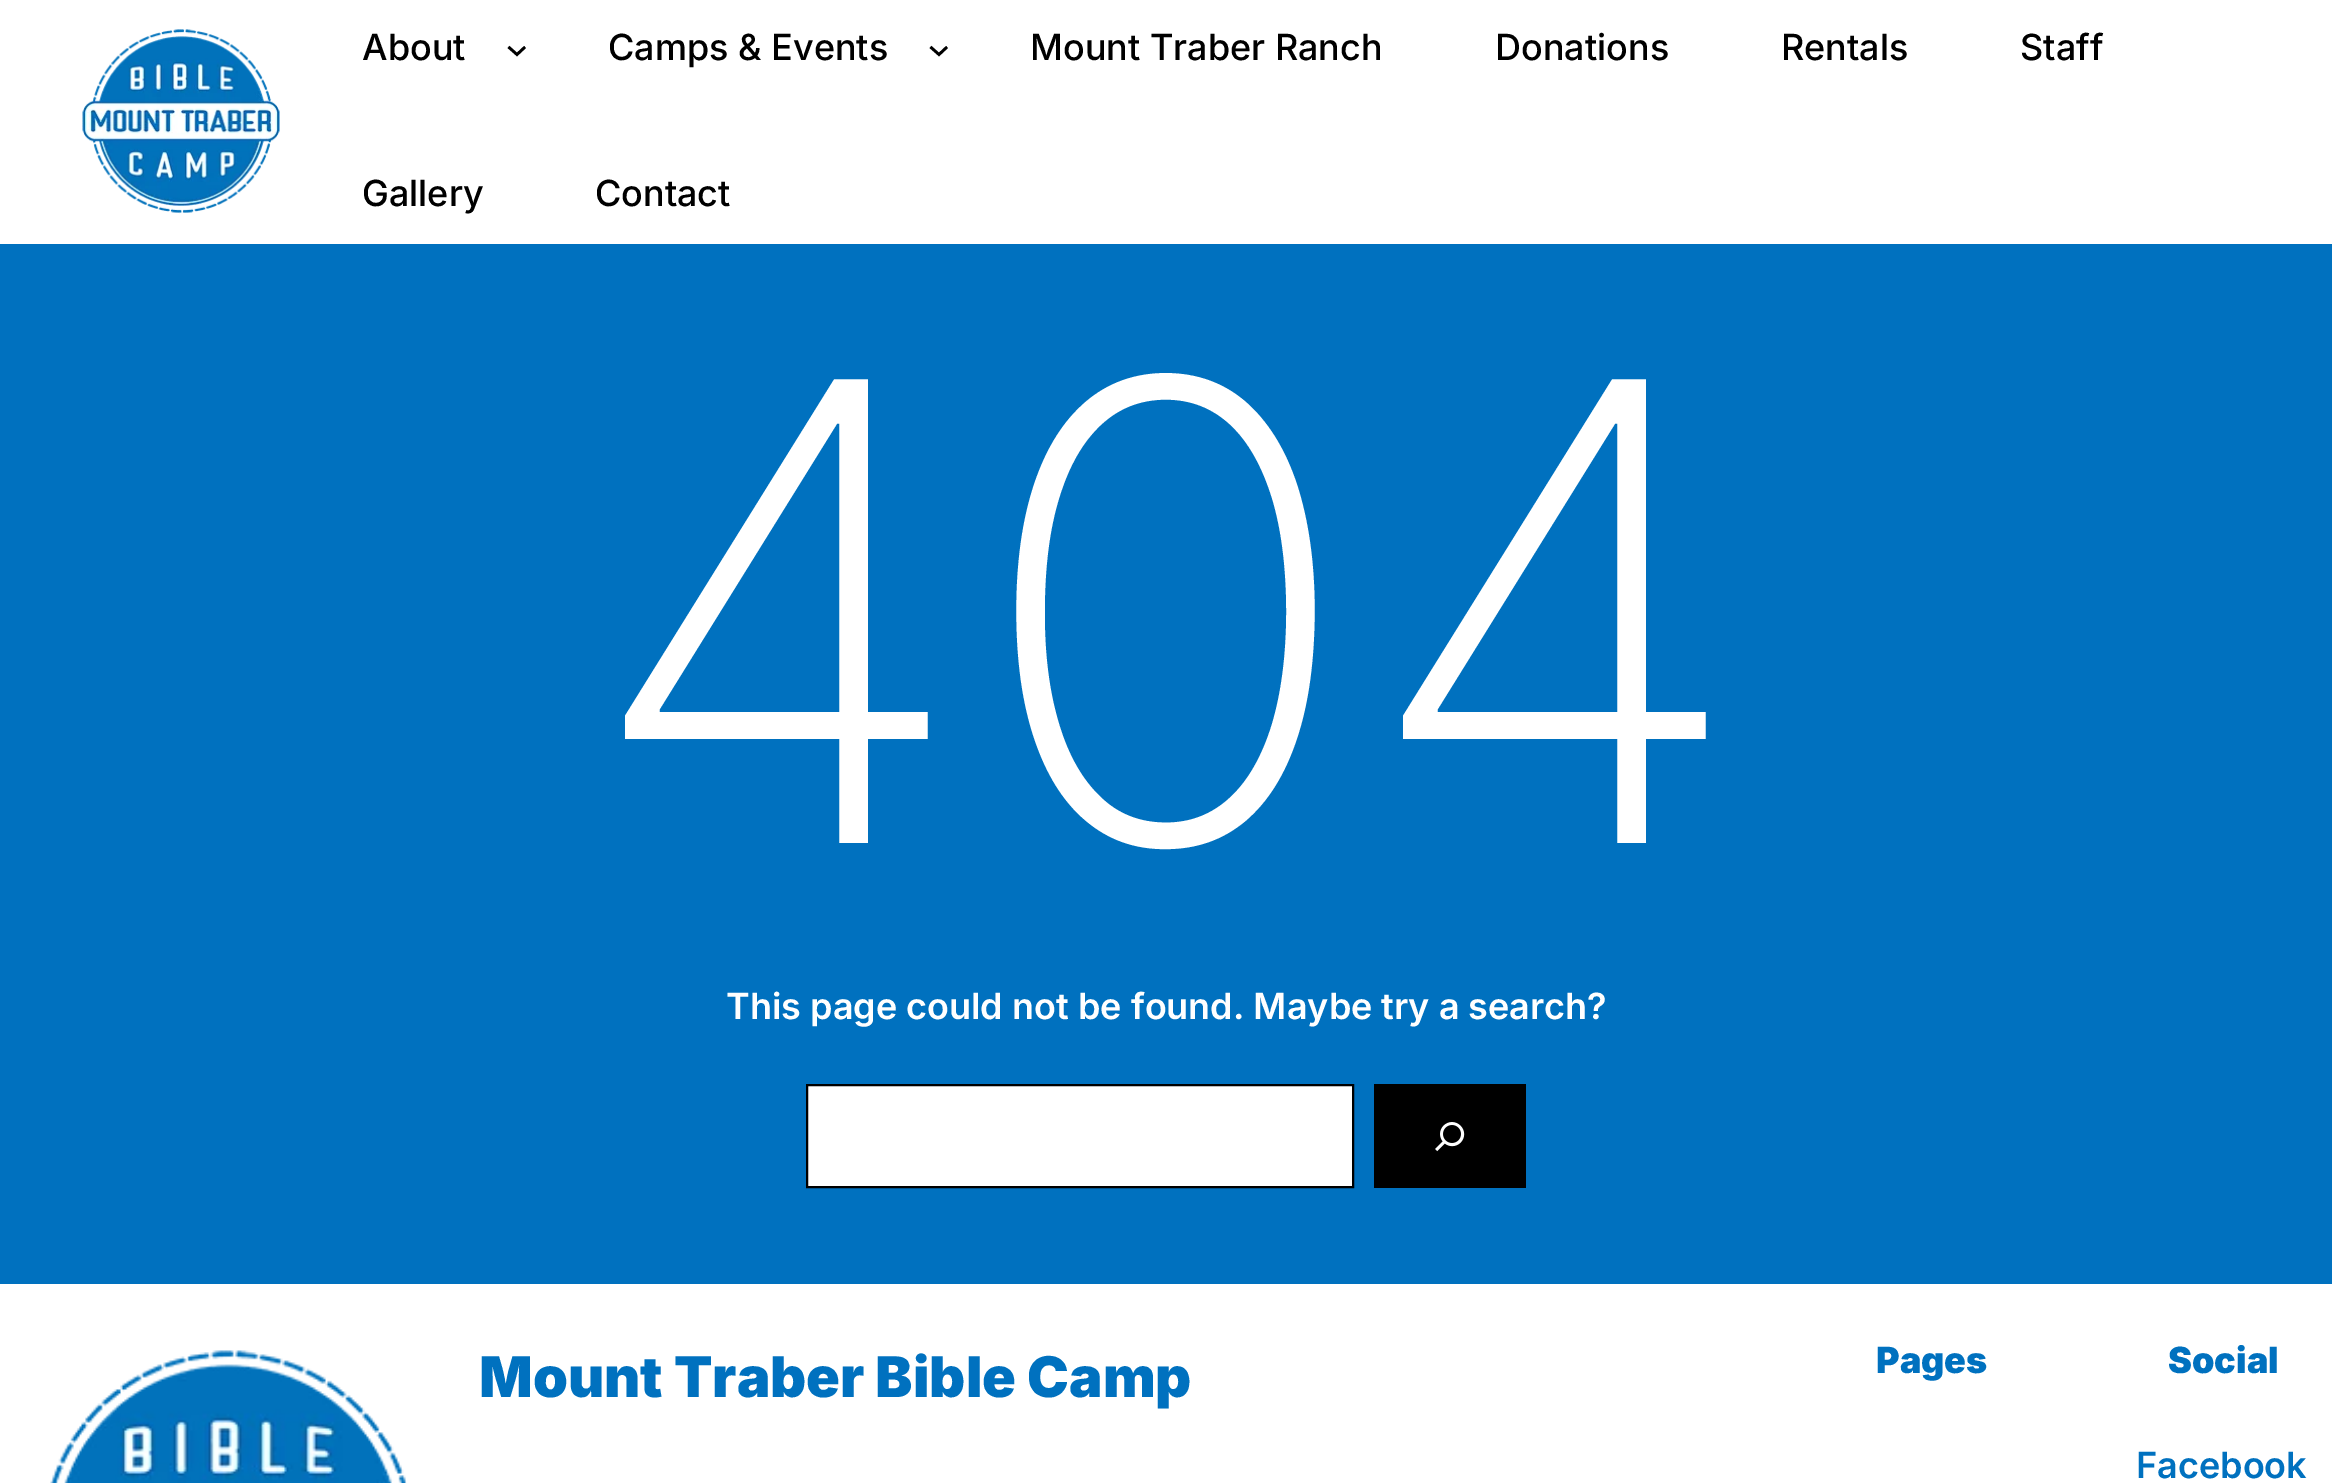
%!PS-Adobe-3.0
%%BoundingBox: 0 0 2332 1483
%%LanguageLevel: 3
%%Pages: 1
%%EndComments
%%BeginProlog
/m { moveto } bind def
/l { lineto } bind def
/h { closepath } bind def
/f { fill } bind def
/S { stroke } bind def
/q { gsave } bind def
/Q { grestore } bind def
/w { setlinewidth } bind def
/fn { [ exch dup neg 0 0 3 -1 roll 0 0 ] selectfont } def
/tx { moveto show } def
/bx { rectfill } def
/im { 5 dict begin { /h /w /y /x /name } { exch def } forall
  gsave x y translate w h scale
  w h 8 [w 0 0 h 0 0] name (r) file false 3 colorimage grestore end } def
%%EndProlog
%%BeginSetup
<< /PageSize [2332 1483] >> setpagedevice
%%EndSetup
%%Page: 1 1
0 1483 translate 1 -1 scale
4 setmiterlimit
0 0.443 0.749 setrgbcolor
0 0 2332 1483 bx
1 setgray
0 0 2332 244 bx
(image0.raw) 82 29 198 185 im
/Inter-Medium 36 fn
0 setgray
(About) 362 60 tx
2.7 w
508.5 47 m 517 54.5 l 525 47 l S
(Camps & Events) 608 60 tx
930.5 47 m 939 54.5 l 947 47 l S
(Mount Traber Ranch) 1030 60 tx
(Donations) 1495 60 tx
(Rentals) 1781 60 tx
(Staff) 2020 60 tx
(Gallery) 362 206 tx
(Contact) 595 206 tx
/Inter-ExtraLight 640 fn
1 setgray
(404) 581 843 tx
/Inter-SemiBold 36 fn
(This page could not be found. Maybe try a search?) 726 1019 tx
807 1085 m 1353 1085 l 1353 1187 l 807 1187 l h q f Q
0 setgray
2 w
S
1374 1084 152 104 bx
(image1.raw) 1435 1122 30 30 im
1 setgray
0 1284 2332 199 bx
(image2.raw) 50 1350 357 133 im
/Inter-Black 56 fn
0 0.443 0.749 setrgbcolor
(Mount Traber Bible Camp) 479 1397 tx
/Inter-Black 36 fn
(Pages) 1876 1373 tx
(Social) 2168 1373 tx
/Inter-SemiBold 36 fn
(Facebook) 2136 1478 tx
showpage
%%EOF
